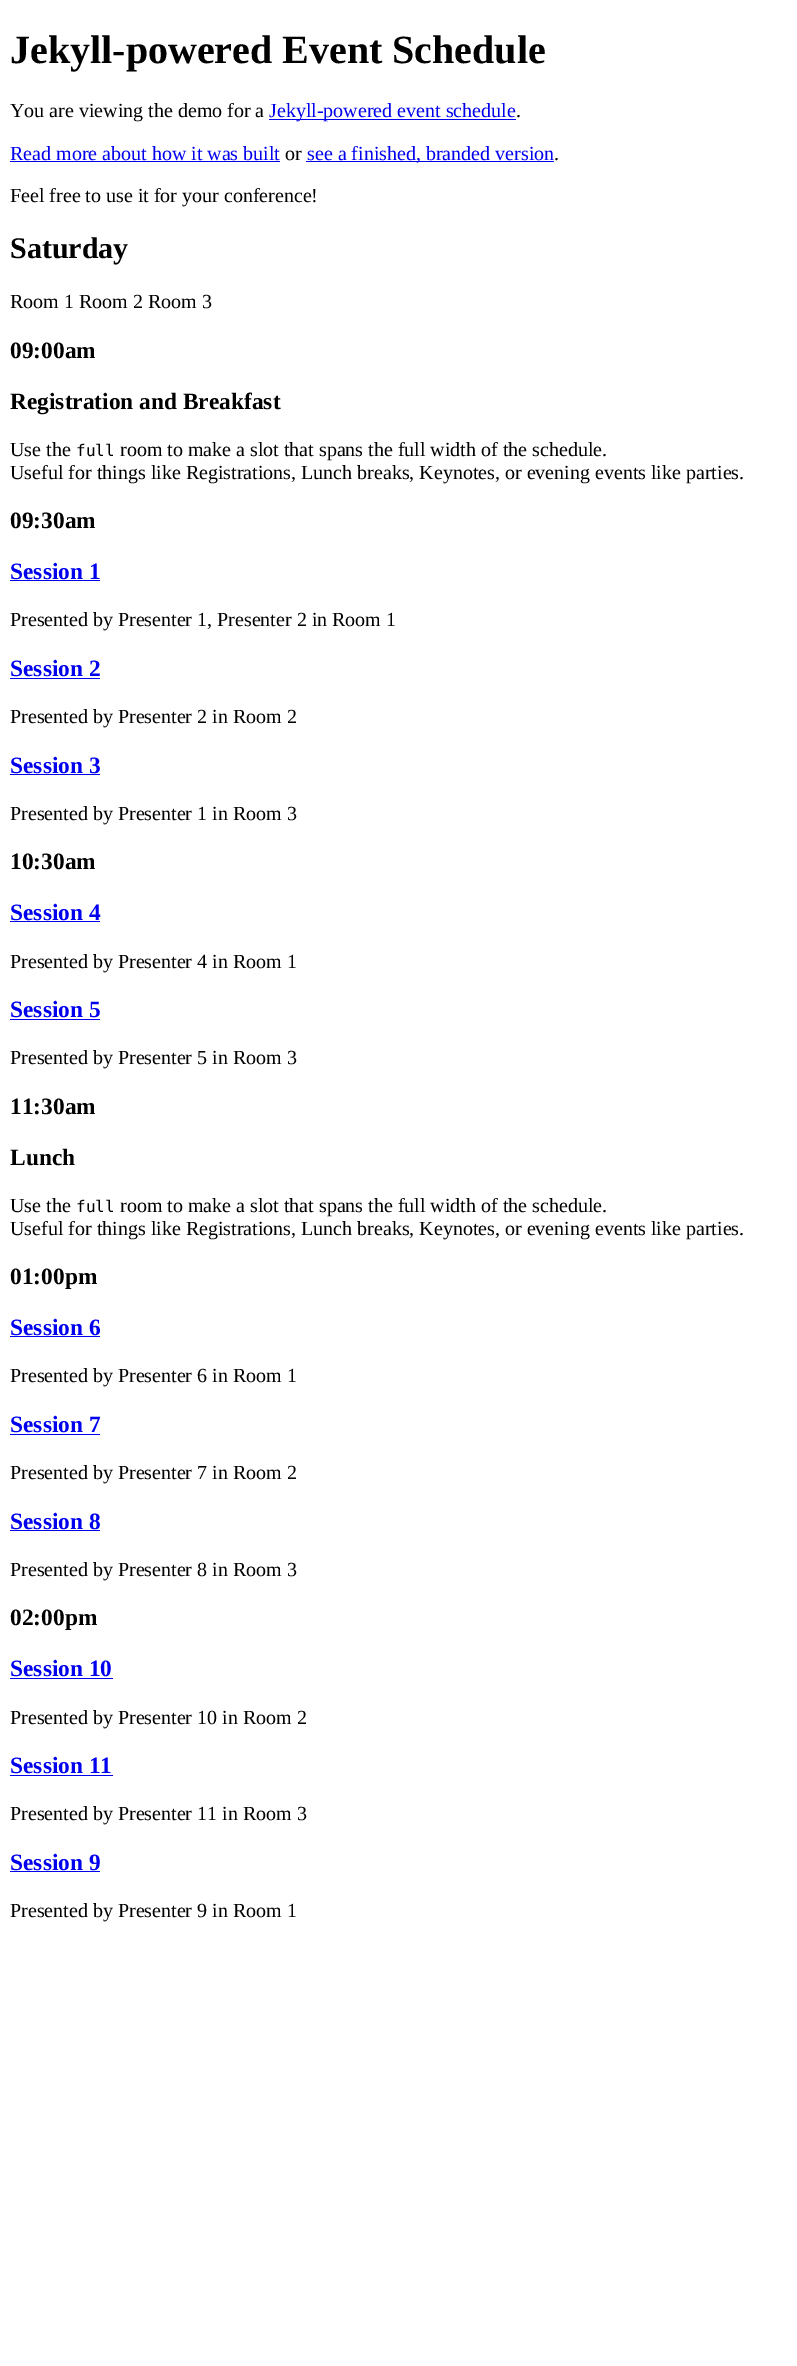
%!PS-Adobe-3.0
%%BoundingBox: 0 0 797 2366
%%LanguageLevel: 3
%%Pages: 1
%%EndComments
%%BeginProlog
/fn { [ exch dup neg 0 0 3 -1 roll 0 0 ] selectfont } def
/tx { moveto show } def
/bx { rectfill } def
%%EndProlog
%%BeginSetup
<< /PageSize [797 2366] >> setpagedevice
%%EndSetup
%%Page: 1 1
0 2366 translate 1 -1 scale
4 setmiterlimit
1 setgray
0 0 797 2366 bx
/LiberationSerif-Bold 40 fn
0 setgray
(Jekyll-powered Event Schedule) 10 63 tx
/LiberationSerif-Regular 20 fn
(You are viewing the demo for a) 10 117 tx
0 0 0.933 setrgbcolor
269 119 247 1 bx
(Jekyll-powered event schedule) 269 117 tx
0 setgray
(.) 516 117 tx
0 0 0.933 setrgbcolor
(Read more about how it was built) 10 160 tx
10 161 270 1 bx
0 setgray
(or) 285 160 tx
0 0 0.933 setrgbcolor
306 161 248 1 bx
(see a finished, branded version) 307 160 tx
0 setgray
(.) 554 160 tx
(Feel free to use it for your conference!) 10 202 tx
/LiberationSerif-Bold 30 fn
(Saturday) 10 258 tx
/LiberationSerif-Regular 20 fn
(Room 1 Room 2 Room 3) 10 308 tx
/LiberationSerif-Bold 23.4 fn
(09:00am) 10 358 tx
(Registration and Breakfast) 10 409 tx
/LiberationSerif-Regular 20 fn
(Use the) 10 456 tx
/DejaVuSansMono-Regular 16 fn
(full) 76 456 tx
/LiberationSerif-Regular 20 fn
(room to make a slot that spans the full width of the schedule.) 120 456 tx
(Useful for things like Registrations, Lunch breaks, Keynotes, or evening events like parties.) 10 479 tx
/LiberationSerif-Bold 23.4 fn
(09:30am) 10 528 tx
0 0 0.933 setrgbcolor
(Session 1) 10 579 tx
10 580 90 1 bx
/LiberationSerif-Regular 20 fn
0 setgray
(Presented by Presenter 1, Presenter 2 in Room 1) 10 626 tx
/LiberationSerif-Bold 23.4 fn
0 0 0.933 setrgbcolor
(Session 2) 10 676 tx
10 678 90 1 bx
/LiberationSerif-Regular 20 fn
0 setgray
(Presented by Presenter 2 in Room 2) 10 723 tx
/LiberationSerif-Bold 23.4 fn
0 0 0.933 setrgbcolor
(Session 3) 10 773 tx
10 774 90 1 bx
/LiberationSerif-Regular 20 fn
0 setgray
(Presented by Presenter 1 in Room 3) 10 820 tx
/LiberationSerif-Bold 23.4 fn
(10:30am) 10 869 tx
0 0 0.933 setrgbcolor
(Session 4) 10 920 tx
10 921 90 1 bx
/LiberationSerif-Regular 20 fn
0 setgray
(Presented by Presenter 4 in Room 1) 10 968 tx
/LiberationSerif-Bold 23.4 fn
0 0 0.933 setrgbcolor
(Session 5) 10 1017 tx
10 1019 90 1 bx
/LiberationSerif-Regular 20 fn
0 setgray
(Presented by Presenter 5 in Room 3) 10 1064 tx
/LiberationSerif-Bold 23.4 fn
(11:30am) 10 1114 tx
(Lunch) 10 1165 tx
/LiberationSerif-Regular 20 fn
(Use the) 10 1212 tx
/DejaVuSansMono-Regular 16 fn
(full) 76 1212 tx
/LiberationSerif-Regular 20 fn
(room to make a slot that spans the full width of the schedule.) 120 1212 tx
(Useful for things like Registrations, Lunch breaks, Keynotes, or evening events like parties.) 10 1235 tx
/LiberationSerif-Bold 23.4 fn
(01:00pm) 10 1284 tx
0 0 0.933 setrgbcolor
(Session 6) 10 1335 tx
10 1336 90 1 bx
/LiberationSerif-Regular 20 fn
0 setgray
(Presented by Presenter 6 in Room 1) 10 1382 tx
/LiberationSerif-Bold 23.4 fn
0 0 0.933 setrgbcolor
(Session 7) 10 1432 tx
10 1434 90 1 bx
/LiberationSerif-Regular 20 fn
0 setgray
(Presented by Presenter 7 in Room 2) 10 1479 tx
/LiberationSerif-Bold 23.4 fn
0 0 0.933 setrgbcolor
(Session 8) 10 1529 tx
10 1530 90 1 bx
/LiberationSerif-Regular 20 fn
0 setgray
(Presented by Presenter 8 in Room 3) 10 1576 tx
/LiberationSerif-Bold 23.4 fn
(02:00pm) 10 1625 tx
0 0 0.933 setrgbcolor
(Session 10) 10 1676 tx
10 1678 103 1 bx
/LiberationSerif-Regular 20 fn
0 setgray
(Presented by Presenter 10 in Room 2) 10 1724 tx
/LiberationSerif-Bold 23.4 fn
0 0 0.933 setrgbcolor
(Session 11) 10 1773 tx
10 1775 103 1 bx
/LiberationSerif-Regular 20 fn
0 setgray
(Presented by Presenter 11 in Room 3) 10 1820 tx
/LiberationSerif-Bold 23.4 fn
0 0 0.933 setrgbcolor
(Session 9) 10 1870 tx
10 1871 90 1 bx
/LiberationSerif-Regular 20 fn
0 setgray
(Presented by Presenter 9 in Room 1) 10 1917 tx
showpage
%%EOF
